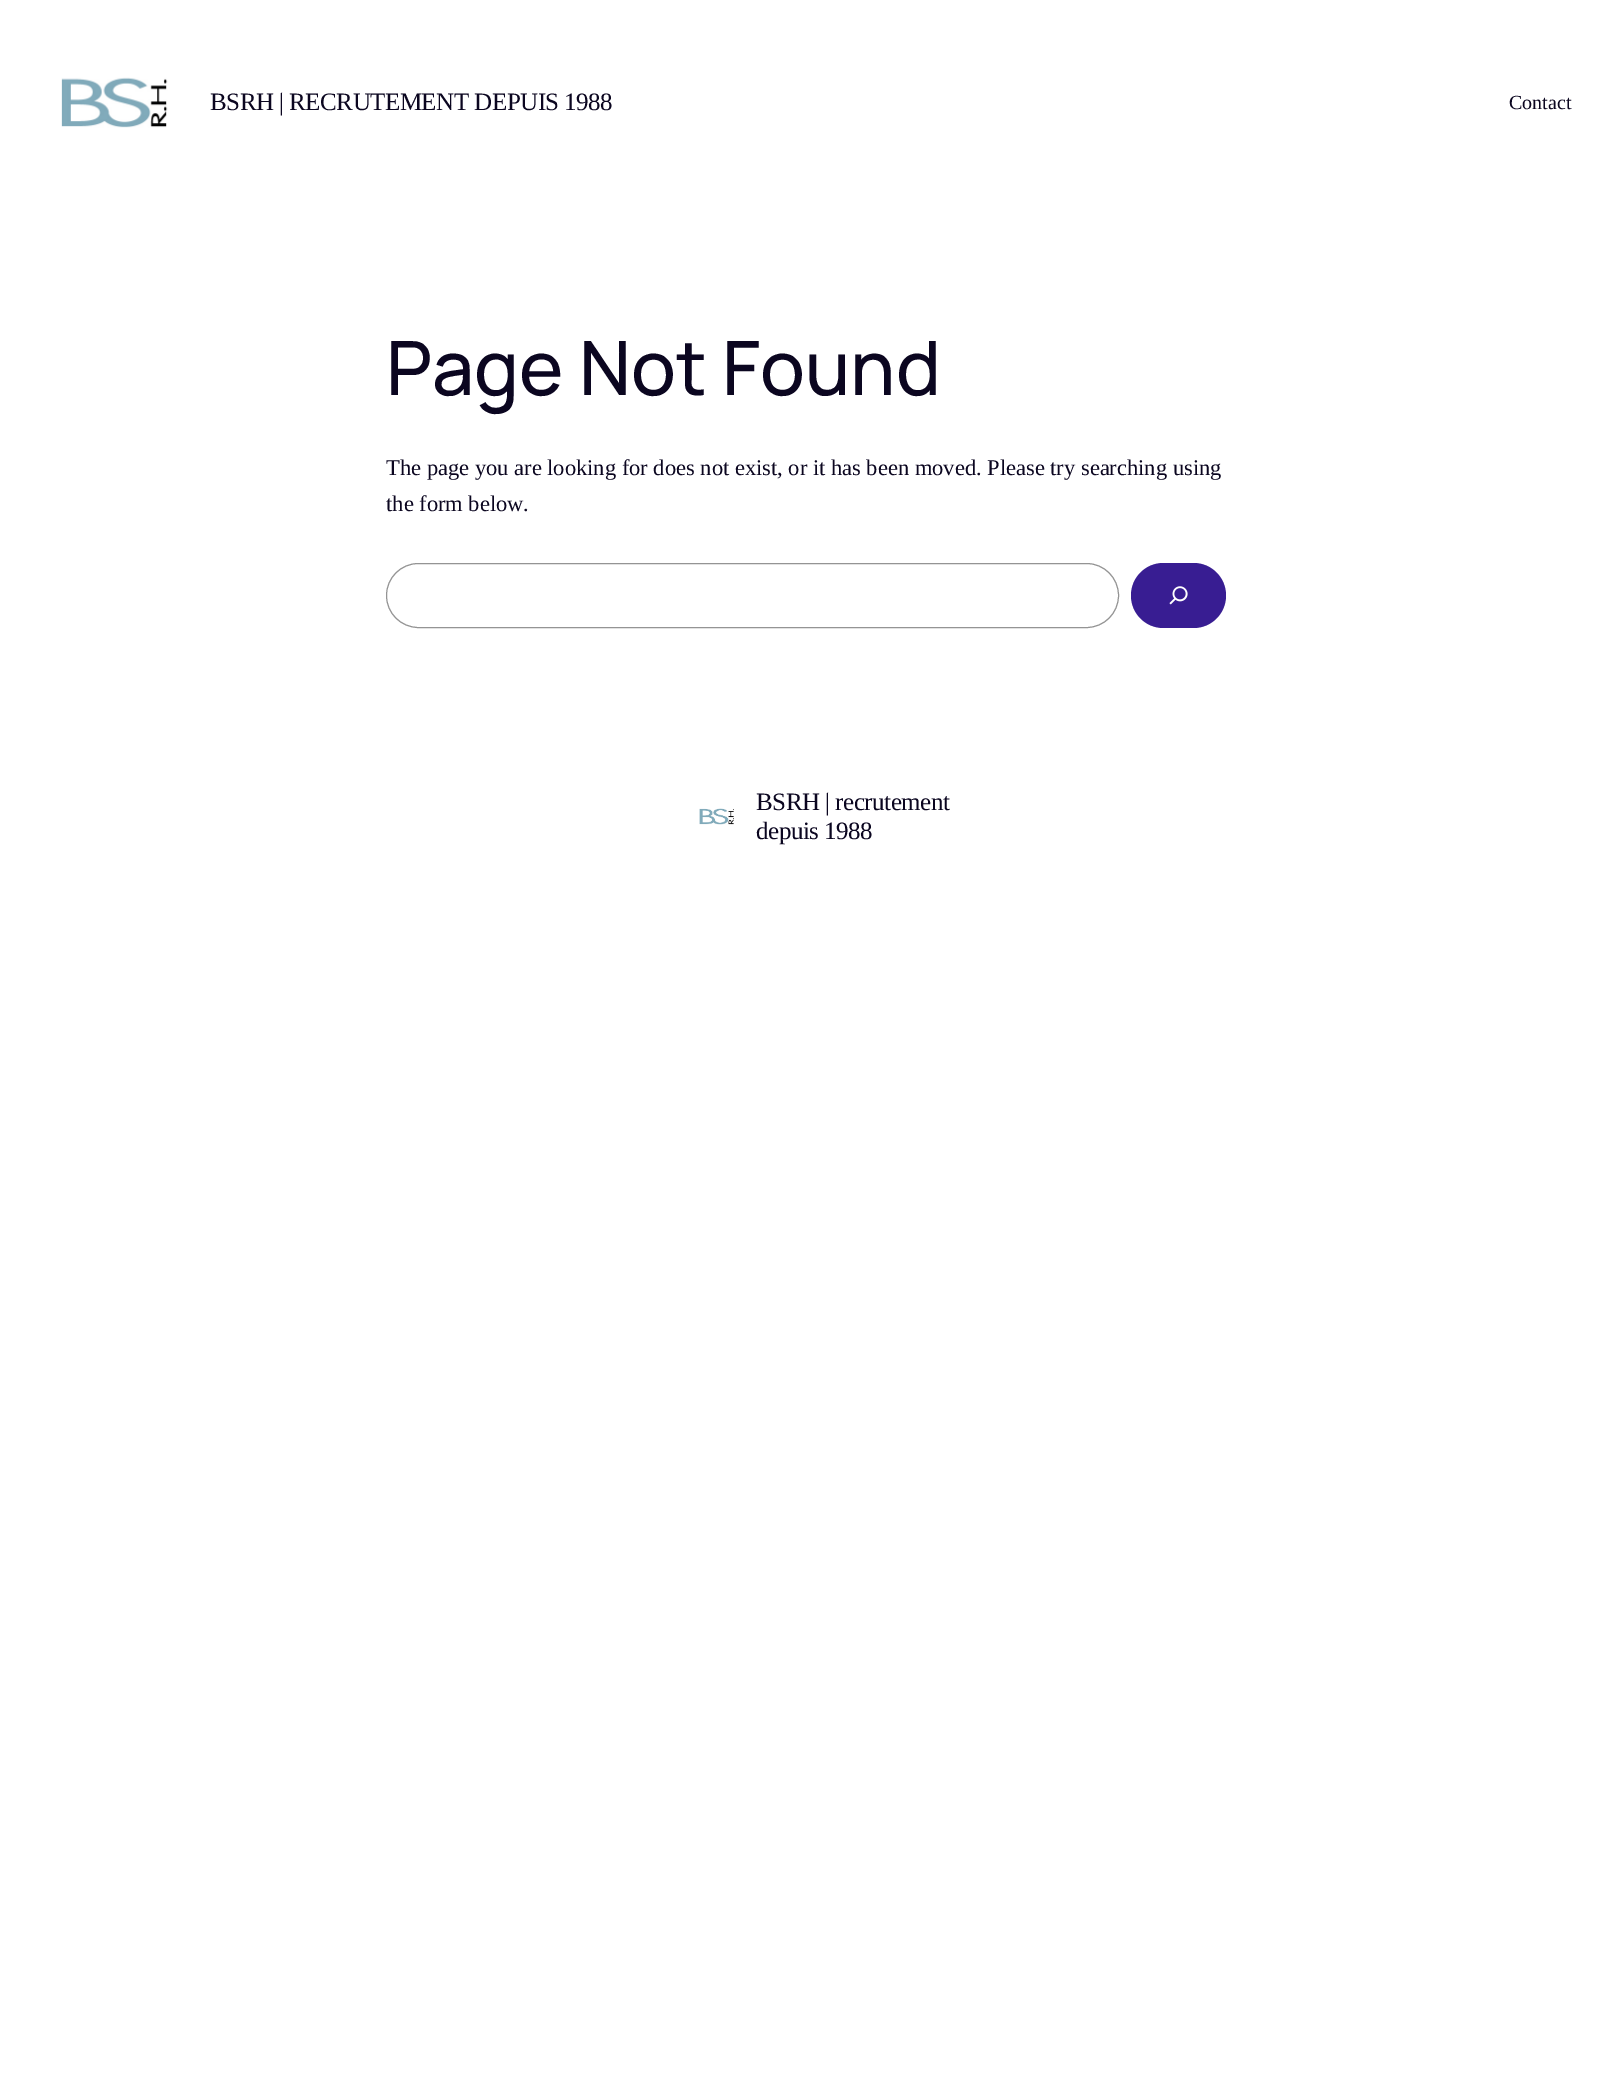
%!PS-Adobe-3.0
%%BoundingBox: 0 0 1611 2079
%%LanguageLevel: 3
%%Pages: 1
%%EndComments
%%BeginProlog
/m { moveto } bind def
/f { fill } bind def
/S { stroke } bind def
/fn { [ exch dup neg 0 0 3 -1 roll 0 0 ] selectfont } def
/tx { moveto show } def
/bx { rectfill } def
/rr { 5 dict begin { /r /h /w /y /x } { exch def } forall
  x r add y moveto x w add y 2 copy h add r arct x w add y h add x 1 index r arct
  x y h add x y r arct x y 2 copy exch w add exch r arct closepath end } def
/im { 5 dict begin { /h /w /y /x /name } { exch def } forall
  gsave x y translate w h scale
  w h 8 [w 0 0 h 0 0] name (r) file false 3 colorimage grestore end } def
%%EndProlog
%%BeginSetup
<< /PageSize [1611 2079] >> setpagedevice
%%EndSetup
%%Page: 1 1
0 2079 translate 1 -1 scale
4 setmiterlimit
1 setgray
0 0 1611 2079 bx
(image0.raw) 61 77 107 51 im
/LiberationSerif-Regular 25 fn
0.043 0.024 0.125 setrgbcolor
210 110 m -0.5 0 (BSRH | RECRUTEMENT DEPUIS 1988) ashow
/LiberationSerif-Regular 20 fn
(Contact) 1509 109 tx
/Manrope-Medium 75 fn
(Page Not Found) 386 395 tx
/LiberationSerif-Regular 22.5 fn
(The page you are looking for does not exist, or it has been moved. Please try searching using) 386 475 tx
(the form below.) 386 511 tx
0.58 setgray
386.5 563.5 732 64 32 rr S
0.22 0.114 0.573 setrgbcolor
1131 563 95 65 32.5 rr f
(image1.raw) 1169 586 19 19 im
(image2.raw) 699 808 35 17 im
/LiberationSerif-Regular 25 fn
0.043 0.024 0.125 setrgbcolor
756 810 m -0.5 0 (BSRH | recrutement) ashow
756 839 m -0.5 0 (depuis 1988) ashow
showpage
%%EOF
